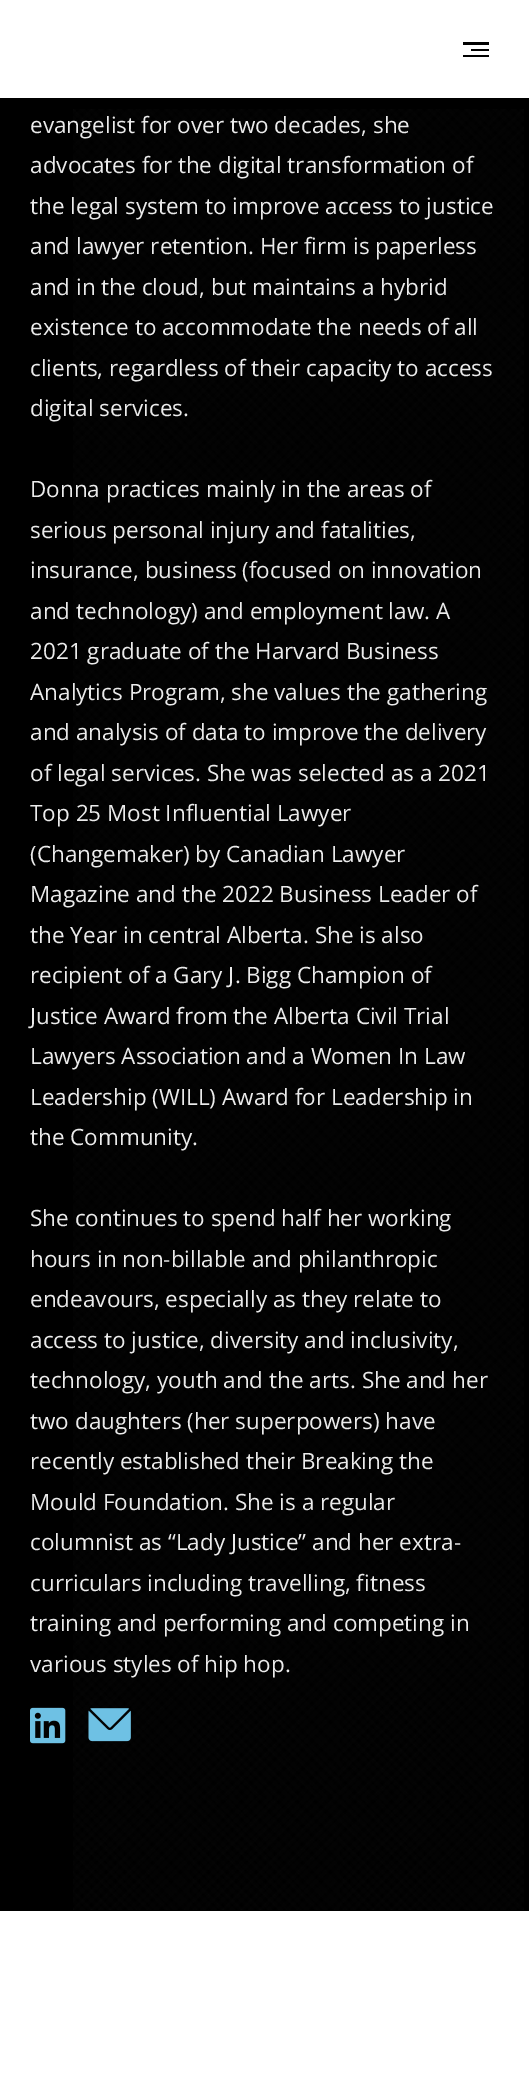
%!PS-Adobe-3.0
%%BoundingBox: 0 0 529 2077
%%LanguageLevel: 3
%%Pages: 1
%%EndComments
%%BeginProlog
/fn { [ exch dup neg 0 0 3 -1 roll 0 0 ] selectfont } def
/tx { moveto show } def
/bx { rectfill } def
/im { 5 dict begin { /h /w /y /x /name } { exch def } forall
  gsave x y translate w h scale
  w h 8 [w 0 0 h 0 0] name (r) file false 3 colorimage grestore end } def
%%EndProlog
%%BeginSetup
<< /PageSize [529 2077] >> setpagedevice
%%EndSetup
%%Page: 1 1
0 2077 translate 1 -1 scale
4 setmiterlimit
0 setgray
0 0 529 2077 bx
1 setgray
0 0 529 98 bx
0 setgray
463 42 26 3 bx
471 49 18 2 bx
463 55 26 2 bx
(image0.raw) 73 109 451 1801 im
/OpenSans-Regular 22.5 fn
0.922 setgray
(evangelist for over two decades, she) 30 133 tx
(advocates for the digital transformation of) 30 173 tx
(the legal system to improve access to justice) 30 214 tx
(and lawyer retention. Her firm is paperless) 30 254 tx
(and in the cloud, but maintains a hybrid) 30 295 tx
(existence to accommodate the needs of all) 30 335 tx
(clients, regardless of their capacity to access) 30 376 tx
(digital services.) 30 416 tx
(Donna practices mainly in the areas of) 30 497 tx
(serious personal injury and fatalities,) 30 538 tx
(insurance, business \(focused on innovation) 30 578 tx
(and technology\) and employment law. A) 30 619 tx
(2021 graduate of the Harvard Business) 30 659 tx
(Analytics Program, she values the gathering) 30 700 tx
(and analysis of data to improve the delivery) 30 740 tx
(of legal services. She was selected as a 2021) 30 781 tx
(Top 25 Most Influential Lawyer) 30 821 tx
(\(Changemaker\) by Canadian Lawyer) 30 862 tx
(Magazine and the 2022 Business Leader of) 30 902 tx
(the Year in central Alberta. She is also) 30 943 tx
(recipient of a Gary J. Bigg Champion of) 30 983 tx
(Justice Award from the Alberta Civil Trial) 30 1024 tx
(Lawyers Association and a Women In Law) 30 1064 tx
(Leadership \(WILL\) Award for Leadership in) 30 1105 tx
(the Community.) 30 1145 tx
(She continues to spend half her working) 30 1226 tx
(hours in non-billable and philanthropic) 30 1267 tx
(endeavours, especially as they relate to) 30 1307 tx
(access to justice, diversity and inclusivity,) 30 1348 tx
(technology, youth and the arts. She and her) 30 1388 tx
(two daughters \(her superpowers\) have) 30 1429 tx
(recently established their Breaking the) 30 1469 tx
(Mould Foundation. She is a regular) 30 1510 tx
(columnist as “Lady Justice” and her extra-) 30 1550 tx
(curriculars including travelling, fitness) 30 1591 tx
(training and performing and competing in) 30 1631 tx
(various styles of hip hop.) 30 1672 tx
(image1.raw) 30 1707 36 37 im
(image2.raw) 88 1708 43 34 im
1 setgray
0 1911 529 166 bx
showpage
%%EOF
